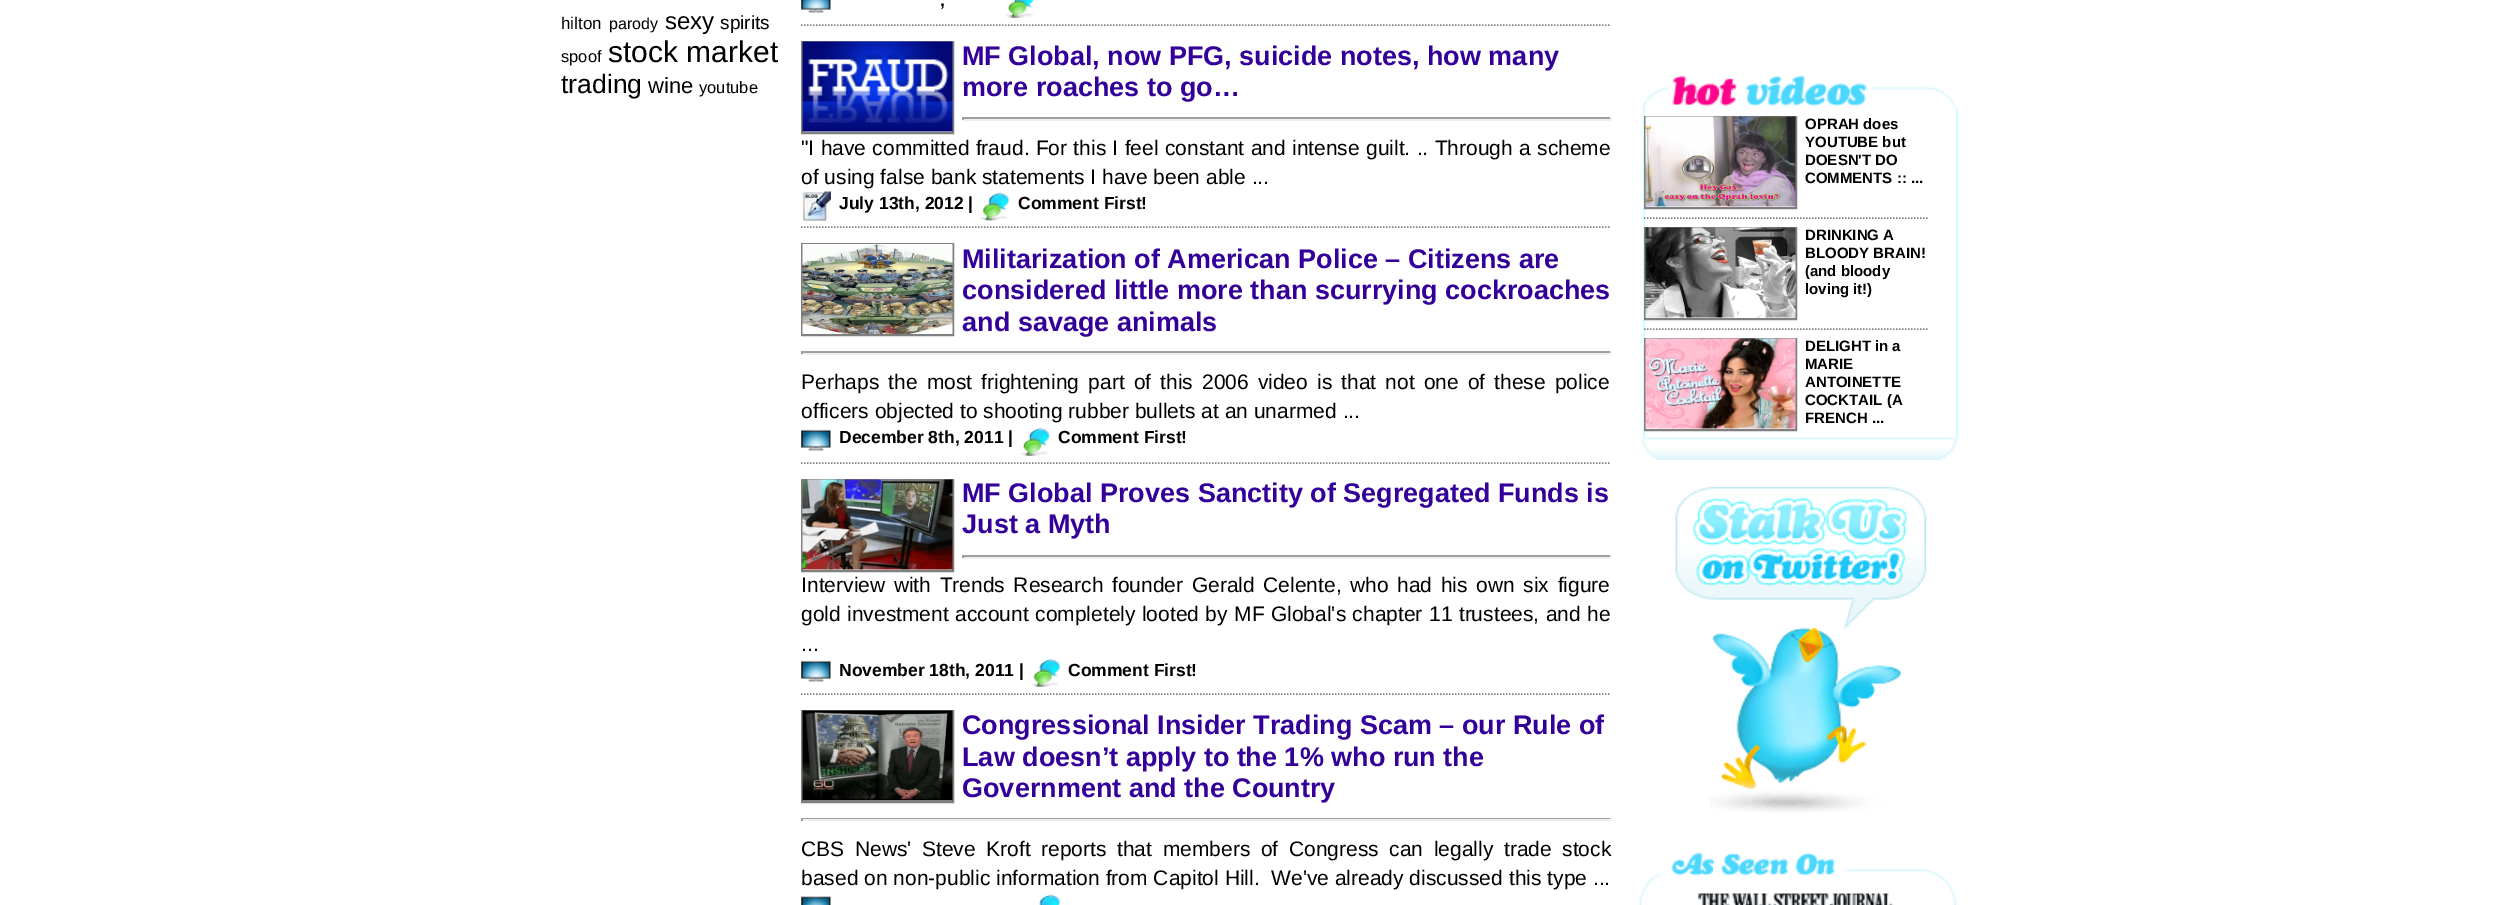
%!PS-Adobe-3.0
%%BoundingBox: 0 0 2501 905
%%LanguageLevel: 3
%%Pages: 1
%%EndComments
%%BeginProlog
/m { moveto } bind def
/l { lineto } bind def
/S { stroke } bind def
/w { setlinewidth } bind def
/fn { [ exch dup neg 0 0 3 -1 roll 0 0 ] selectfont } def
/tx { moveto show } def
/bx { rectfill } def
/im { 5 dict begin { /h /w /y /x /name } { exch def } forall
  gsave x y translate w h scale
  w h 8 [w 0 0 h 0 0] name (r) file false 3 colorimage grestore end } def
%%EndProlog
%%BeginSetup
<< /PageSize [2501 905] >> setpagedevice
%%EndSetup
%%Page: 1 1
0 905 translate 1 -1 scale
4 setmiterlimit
1 setgray
0 0 2501 905 bx
/LiberationSans-Regular 17 fn
0 setgray
(hilton) 561 29 tx
/LiberationSans-Regular 16 fn
(parody) 609 29 tx
/LiberationSans-Regular 24 fn
(sexy) 665 29 tx
/LiberationSans-Regular 19 fn
(spirits) 720 29 tx
/LiberationSans-Regular 16.5 fn
(spoof) 561 62 tx
/LiberationSans-Regular 30 fn
(stock market) 608 62 tx
/LiberationSans-Regular 26.5 fn
(trading) 561 93 tx
/LiberationSans-Regular 22 fn
(wine) 648 93 tx
/LiberationSans-Regular 16.5 fn
(youtube) 699 93 tx
0.502 setgray
1.5 w
[1.5 1.5] 0 setdash
801 25 m 1611 25 l S
(image0.raw) 801 0 30 13 im
/LiberationSans-Bold 17.5 fn
0 setgray
(,) 940 6 tx
(image1.raw) 1005 0 30 18 im
0.502 setgray
801 227 m 1611 227 l S
2 w
[] 0 setdash
802 42 151 91 rectstroke
(image2.raw) 802 41 151 91 im
/LiberationSans-Bold 27 fn
0.2 0 0.6 setrgbcolor
(MF Global, now PFG, suicide notes, how many) 962 65 tx
(more roaches to go…) 962 96 tx
0.624 setgray
962 117 649 2 bx
0.933 setgray
1610 117 2 3 bx
962 119 649 2 bx
0.624 setgray
962 117 2 3 bx
/LiberationSans-Regular 21 fn
0 setgray
801 155 m 0.5 0 32 ("I have committed fraud. For this I feel constant and intense guilt. .. Through a scheme) widthshow
(of using false bank statements I have been able ...) 801 184 tx
(image3.raw) 801 191 30 31 im
/LiberationSans-Bold 17.5 fn
(July 13th, 2012 |) 839 209 tx
(image4.raw) 980 192 30 29 im
(Comment First!) 1018 209 tx
0.502 setgray
1.5 w
[1.5 1.5] 0 setdash
801 463 m 1611 463 l S
2 w
[] 0 setdash
802 244 151 91 rectstroke
(image5.raw) 802 244 151 90 im
/LiberationSans-Bold 27 fn
0.2 0 0.6 setrgbcolor
(Militarization of American Police – Citizens are) 962 268 tx
(considered little more than scurrying cockroaches) 962 299 tx
(and savage animals) 962 331 tx
0.624 setgray
801 351 810 2 bx
0.933 setgray
1610 351 2 3 bx
801 353 810 2 bx
0.624 setgray
801 351 2 3 bx
/LiberationSans-Regular 21 fn
0 setgray
801 389 m 3.25 0 32 (Perhaps the most frightening part of this 2006 video is that not one of these police) widthshow
(officers objected to shooting rubber bullets at an unarmed ...) 801 418 tx
(image6.raw) 801 429 30 22 im
/LiberationSans-Bold 17.5 fn
(December 8th, 2011 |) 839 443 tx
(image7.raw) 1020 428 30 28 im
(Comment First!) 1058 443 tx
0.502 setgray
1.5 w
[1.5 1.5] 0 setdash
801 694 m 1611 694 l S
2 w
[] 0 setdash
802 480 151 91 rectstroke
(image8.raw) 802 479 151 91 im
/LiberationSans-Bold 27 fn
0.2 0 0.6 setrgbcolor
(MF Global Proves Sanctity of Segregated Funds is) 962 502 tx
(Just a Myth) 962 533 tx
0.624 setgray
962 555 649 2 bx
0.933 setgray
1610 555 2 3 bx
962 557 649 2 bx
0.624 setgray
962 555 2 3 bx
/LiberationSans-Regular 21 fn
0 setgray
801 592 m 2.75 0 32 (Interview with Trends Research founder Gerald Celente, who had his own six figure) widthshow
801 621 m 0.6 0 32 (gold investment account completely looted by MF Global's chapter 11 trustees, and he) widthshow
(...) 801 651 tx
(image6.raw) 801 660 30 22 im
/LiberationSans-Bold 17.5 fn
(November 18th, 2011 |) 839 676 tx
(image9.raw) 1031 659 30 28 im
(Comment First!) 1068 676 tx
0.502 setgray
802 711 151 91 rectstroke
(image10.raw) 802 710 151 91 im
/LiberationSans-Bold 27 fn
0.2 0 0.6 setrgbcolor
(Congressional Insider Trading Scam – our Rule of) 962 734 tx
(Law doesn’t apply to the 1% who run the) 962 766 tx
(Government and the Country) 962 797 tx
0.624 setgray
801 818 810 1 bx
0.933 setgray
1610 818 2 3 bx
801 819 810 2 bx
0.624 setgray
801 818 2 3 bx
/LiberationSans-Regular 21 fn
0 setgray
801 856 m 4.75 0 32 (CBS News' Steve Kroft reports that members of Congress can legally trade stock) widthshow
(based on non-public information from Capitol Hill.  We've already discussed this type ...) 801 885 tx
(image11.raw) 801 896 30 9 im
(image12.raw) 1039 894 22 11 im
(image13.raw) 1641 75 317 36 im
0.8 1 1 setrgbcolor
1956 108 2 330 bx
1643 108 2 330 bx
0.502 setgray
1.5 w
[1.5 1.5] 0 setdash
1644 218 m 1929 218 l S
2 w
[] 0 setdash
1645 117 151 91 rectstroke
(image14.raw) 1645 116 151 91 im
/LiberationSans-Bold 15 fn
0 setgray
(OPRAH does) 1805 129 tx
(YOUTUBE but) 1805 147 tx
(DOESN'T DO) 1805 165 tx
(COMMENTS :: ...) 1805 183 tx
0.502 setgray
1.5 w
[1.5 1.5] 0 setdash
1644 329 m 1929 329 l S
2 w
[] 0 setdash
1645 228 151 91 rectstroke
(image15.raw) 1645 227 151 91 im
0 setgray
(DRINKING A) 1805 240 tx
(BLOODY BRAIN!) 1805 258 tx
(\(and bloody) 1805 276 tx
(loving it!\)) 1805 294 tx
0.502 setgray
1645 339 151 91 rectstroke
(image16.raw) 1645 338 151 91 im
0 setgray
(DELIGHT in a) 1805 351 tx
(MARIE) 1805 369 tx
(ANTOINETTE) 1805 387 tx
(COCKTAIL \(A) 1805 405 tx
(FRENCH ...) 1805 423 tx
(image17.raw) 1641 437 317 23 im
(image18.raw) 1675 486 252 327 im
(image19.raw) 1639 852 318 53 im
showpage
%%EOF
